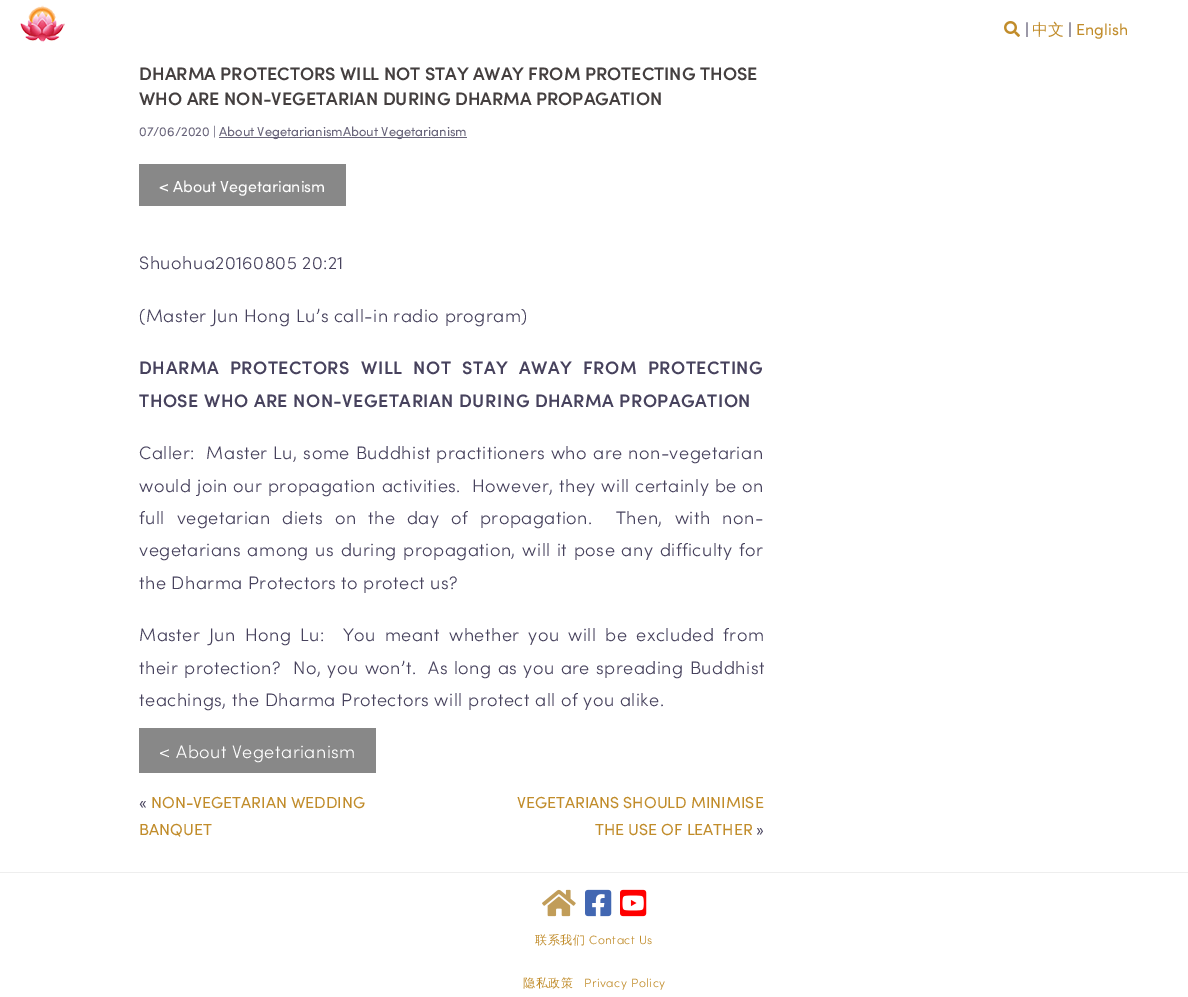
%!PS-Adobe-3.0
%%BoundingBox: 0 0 1188 997
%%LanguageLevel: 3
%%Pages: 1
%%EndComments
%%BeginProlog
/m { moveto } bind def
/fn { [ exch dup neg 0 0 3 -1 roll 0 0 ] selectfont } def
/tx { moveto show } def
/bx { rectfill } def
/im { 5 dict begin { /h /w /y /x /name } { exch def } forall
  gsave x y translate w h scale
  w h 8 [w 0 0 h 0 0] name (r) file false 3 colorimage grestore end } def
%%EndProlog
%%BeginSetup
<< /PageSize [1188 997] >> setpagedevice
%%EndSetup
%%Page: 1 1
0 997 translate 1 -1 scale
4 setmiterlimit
1 setgray
0 0 1188 997 bx
(image0.raw) 20 5 45 38 im
(image1.raw) 1004 21 16 16 im
/Sofia-Regular 16 fn
0.278 0.259 0.365 setrgbcolor
(|) 1025 35 tx
/WenQuanYiZenHei-Medium 16 fn
0.757 0.549 0.165 setrgbcolor
(中文) 1032 35 tx
/Sofia-Regular 16 fn
0.278 0.259 0.365 setrgbcolor
(|) 1068 35 tx
0.757 0.549 0.165 setrgbcolor
(English) 1076 35 tx
/Sofia-SemiBold 18 fn
0.267 0.247 0.247 setrgbcolor
(DHARMA PROTECTORS WILL NOT STAY AWAY FROM PROTECTING THOSE) 139 80 tx
(WHO ARE NON-VEGETARIAN DURING DHARMA PROPAGATION) 139 105 tx
/Sofia-Regular 13 fn
0.408 0.392 0.478 setrgbcolor
(07/06/2020 |) 139 136 tx
219 137 248 1 bx
(About VegetarianismAbout Vegetarianism) 219 136 tx
0.533 setgray
139 164 207 42 bx
/Sofia-Regular 16 fn
1 setgray
(< About Vegetarianism) 159 192 tx
/Sofia-Light 18 fn
0.278 0.259 0.365 setrgbcolor
139 269 m 0.5 0 (Shuohua20160805 20:21) ashow
139 322 m 0.5 0 (\(Master Jun Hong Lu’s call-in radio program\)) ashow
/Sofia-SemiBold 18 fn
139 374 m 6 0 32 0.5 0 (DHARMA PROTECTORS WILL NOT STAY AWAY FROM PROTECTING) awidthshow
139 407 m 0.5 0 (THOSE WHO ARE NON-VEGETARIAN DURING DHARMA PROPAGATION) ashow
/Sofia-Light 18 fn
139 459 m 0.5 0 32 0.5 0 (Caller:  Master Lu, some Buddhist practitioners who are non-vegetarian) awidthshow
139 492 m 0.25 0 32 0.5 0 (would join our propagation activities.  However, they will certainly be on) awidthshow
139 524 m 6.4 0 32 0.5 0 (full vegetarian diets on the day of propagation.  Then, with non-) awidthshow
139 556 m 1.1 0 32 0.5 0 (vegetarians among us during propagation, will it pose any difficulty for) awidthshow
139 589 m 0.5 0 (the Dharma Protectors to protect us?) ashow
139 641 m 3.6 0 32 0.5 0 (Master Jun Hong Lu:  You meant whether you will be excluded from) awidthshow
139 674 m 0.75 0 32 0.5 0 (their protection?  No, you won’t.  As long as you are spreading Buddhist) awidthshow
139 706 m 0.5 0 (teachings, the Dharma Protectors will protect all of you alike.) ashow
0.533 setgray
139 728 237 45 bx
1 setgray
159 758 m 0.5 0 (< About Vegetarianism) ashow
/Sofia-Regular 16 fn
0.278 0.259 0.365 setrgbcolor
(«) 139 808 tx
0.757 0.549 0.165 setrgbcolor
(NON-VEGETARIAN WEDDING) 151 808 tx
(BANQUET) 139 835 tx
(VEGETARIANS SHOULD MINIMISE) 517 808 tx
(THE USE OF LEATHER) 595 835 tx
0.278 0.259 0.365 setrgbcolor
(») 756 835 tx
0.933 setgray
0 872 1188 1 bx
(image2.raw) 542 889 34 28 im
(image3.raw) 585 889 27 28 im
(image4.raw) 620 889 27 28 im
/WenQuanYiZenHei-Medium 12 fn
0.757 0.549 0.165 setrgbcolor
535 944 m 0.5 0 (联系我们) ashow
/Sofia-Light 12 fn
589 944 m 0.5 0 (Contact Us) ashow
/WenQuanYiZenHei-Medium 12 fn
523 987 m 0.5 0 (隐私政策) ashow
/Sofia-Light 12 fn
584 987 m 0.5 0 (Privacy Policy) ashow
showpage
%%EOF
